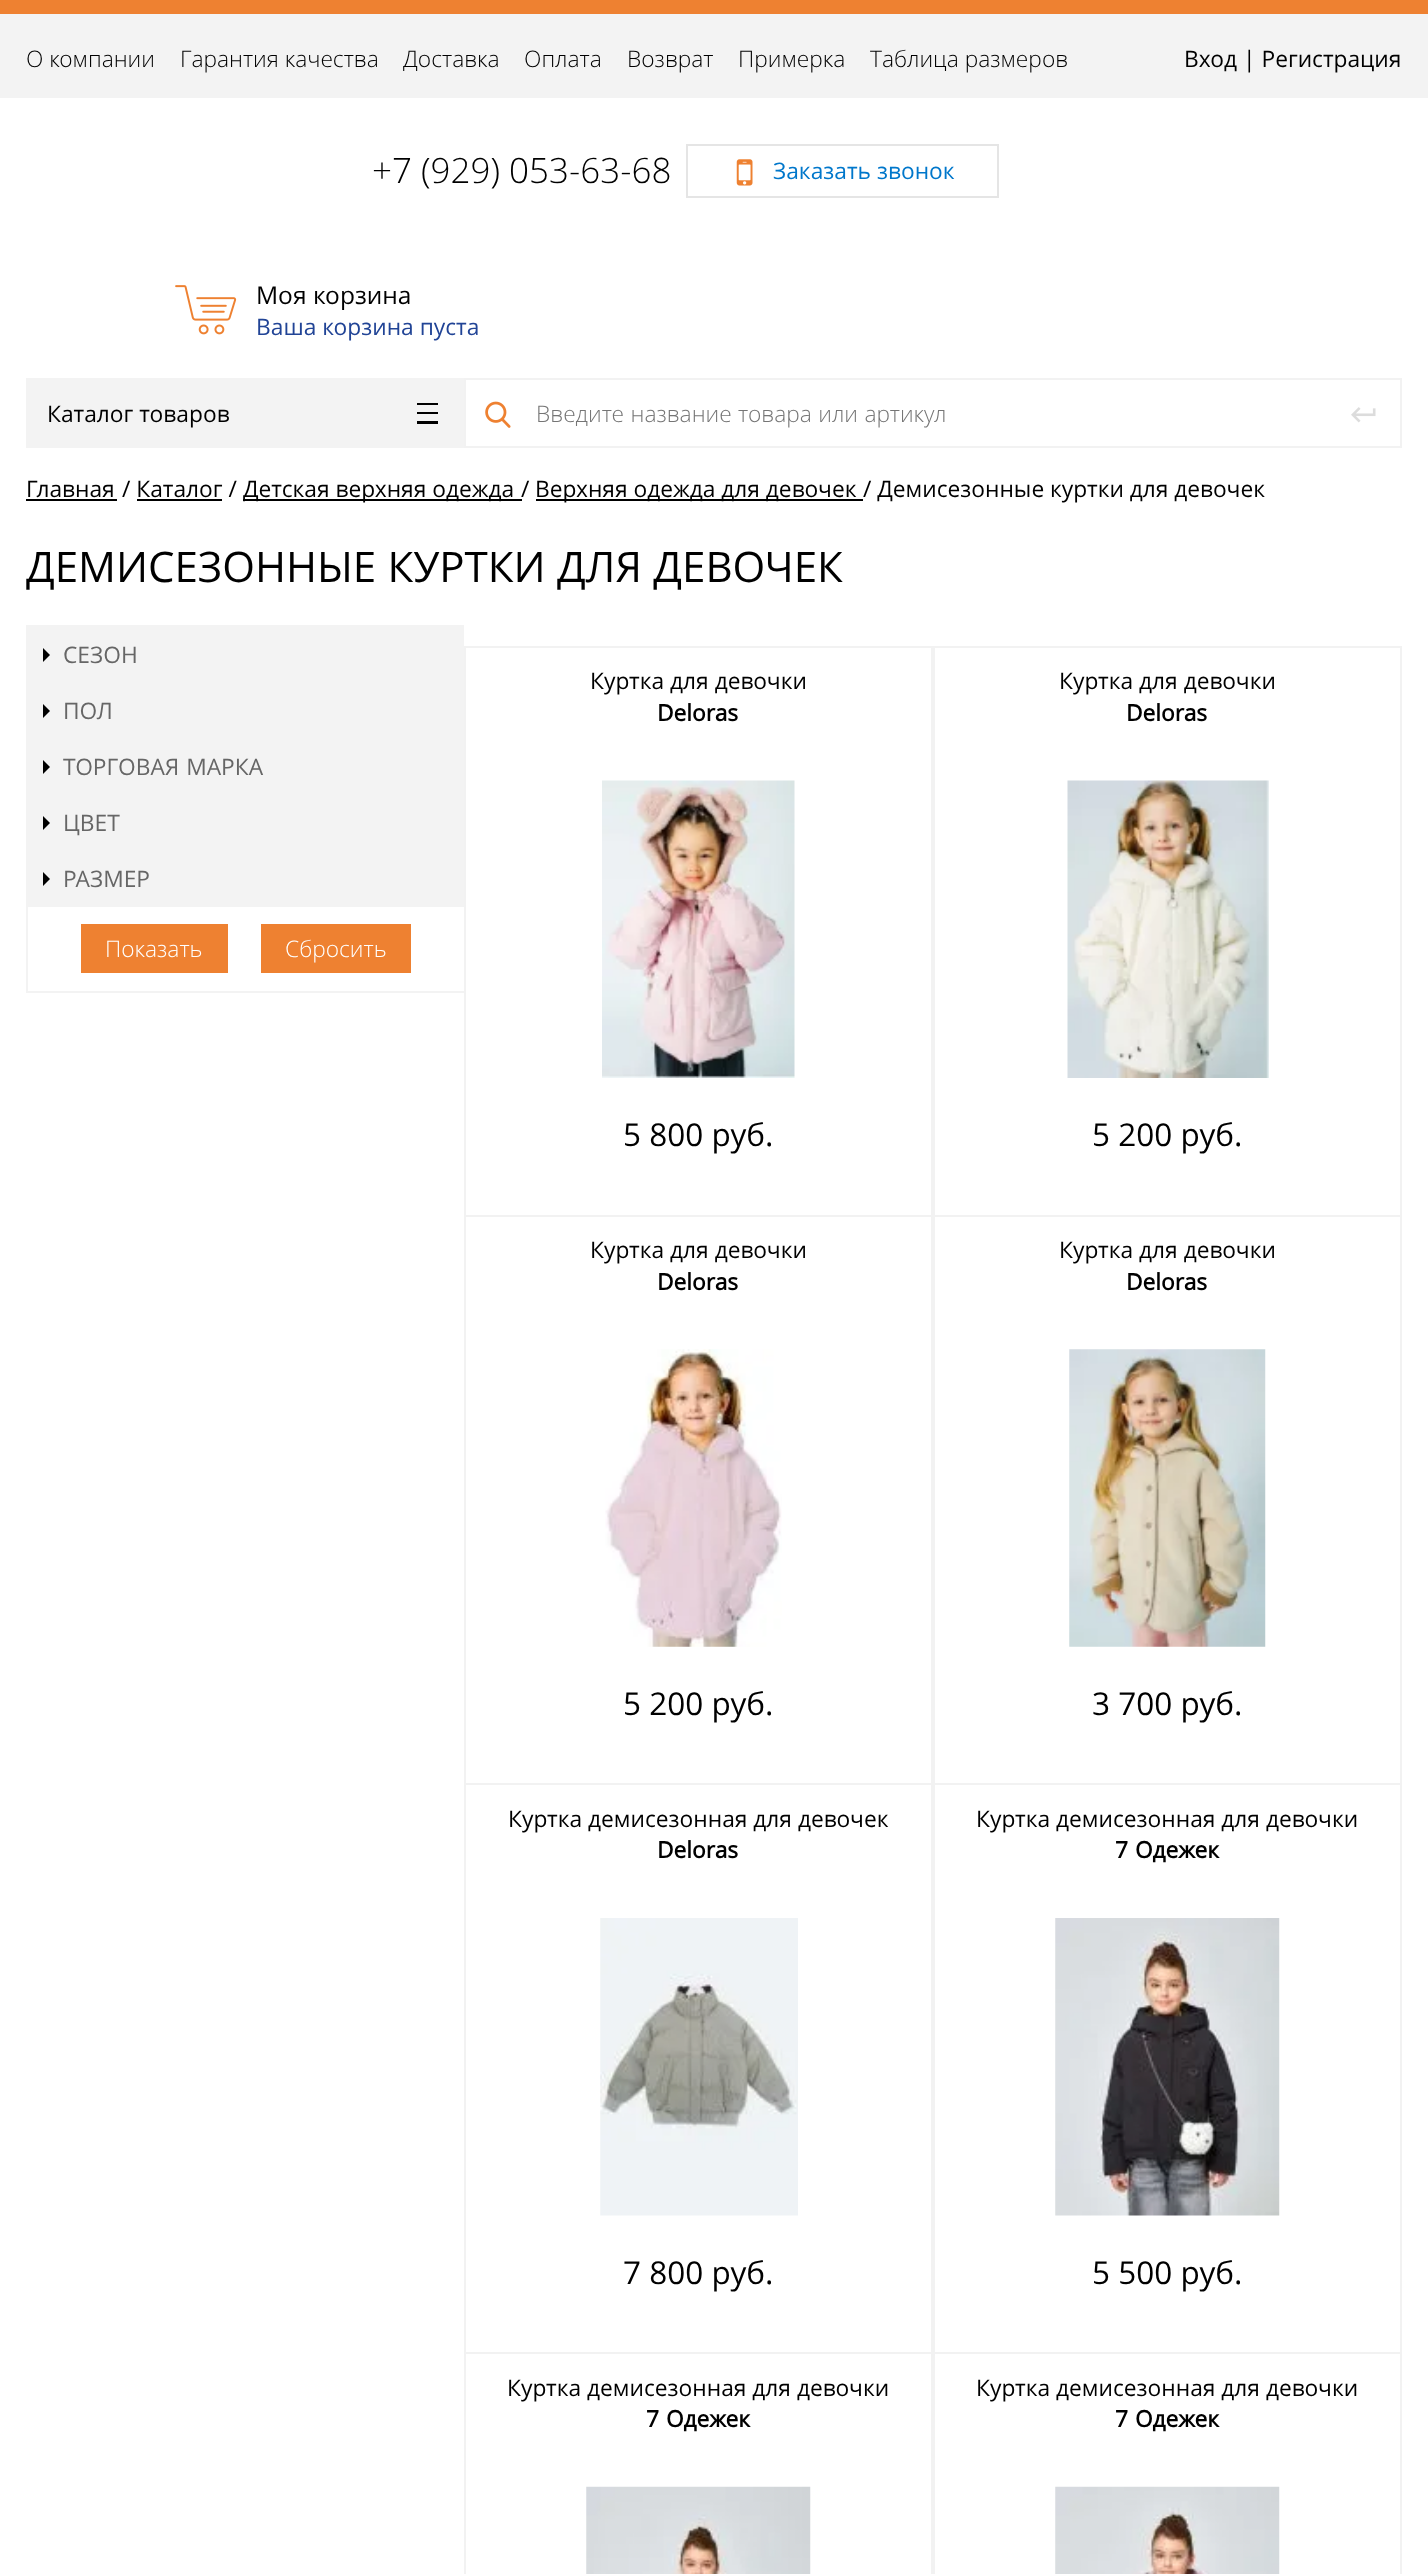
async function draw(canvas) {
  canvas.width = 1428;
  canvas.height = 2574;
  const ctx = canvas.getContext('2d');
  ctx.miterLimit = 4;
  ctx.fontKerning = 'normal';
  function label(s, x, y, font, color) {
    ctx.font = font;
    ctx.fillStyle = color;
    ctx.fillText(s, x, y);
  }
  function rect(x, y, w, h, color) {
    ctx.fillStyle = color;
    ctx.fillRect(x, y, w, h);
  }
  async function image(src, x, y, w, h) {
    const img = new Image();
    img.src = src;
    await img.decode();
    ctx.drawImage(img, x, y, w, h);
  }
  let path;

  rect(0, 0, 1428, 2574, '#fff');
  rect(0, 0, 1428, 14, '#ee8131');
  rect(0, 14, 1428, 84, '#f3f3f3');
  label('О компании', 26, 67, '300 22.75px Open Sans', '#000');
  label('Гарантия качества', 180, 67, '300 22.75px Open Sans', '#000');
  label('Доставка', 403, 67, '300 22.75px Open Sans', '#000');
  label('Оплата', 524, 67, '300 22.75px Open Sans', '#000');
  label('Возврат', 627, 67, '300 22.75px Open Sans', '#000');
  label('Примерка', 738, 67, '300 22.75px Open Sans', '#000');
  label('Таблица размеров', 870, 67, '300 22.75px Open Sans', '#000');
  label('Вход', 1184, 67, '22.75px Open Sans', '#000');
  label('| Регистрация', 1243, 67, '22.75px Open Sans', '#000');
  label('+7 (929) 053-63-68', 372, 183, '300 35px Open Sans', '#000');
  ctx.strokeStyle = '#e5e5e5';
  ctx.lineWidth = 2;
  ctx.strokeRect(687, 145, 311, 52);
  await image('assets/img1.png', 736, 159, 17, 27);
  label('Заказать звонок', 773, 179, '22.75px Open Sans', '#0077cb');
  await image('assets/img2.png', 175, 285, 62, 50);
  label('Моя корзина', 256, 304, '24.5px Open Sans', '#000');
  label('Ваша корзина пуста', 256, 335, '22.75px Open Sans', '#214496');
  rect(26, 378, 438, 70, '#f3f3f3');
  label('Каталог товаров', 47, 422, '22.75px Open Sans', '#000');
  rect(417, 403, 21, 2, '#000');
  rect(417, 412, 21, 2, '#000');
  rect(417, 421, 21, 3, '#000');
  ctx.strokeStyle = '#f2f2f2';
  ctx.strokeRect(465, 379, 936, 68);
  await image('assets/img3.png', 485, 401, 26, 27);
  ctx.wordSpacing = '0.5px';
  label('Введите название товара или артикул', 536, 422, '300 22.75px Open Sans', '#757575');
  await image('assets/img4.png', 1351, 407, 25, 16);
  ctx.wordSpacing = '0px';
  label('Главная', 26, 497, '22.75px Open Sans', '#000');
  rect(26, 499, 91, 2, '#000');
  label('/ Каталог /', 122, 497, '22.75px Open Sans', '#000');
  rect(243, 499, 279, 2, '#000');
  label('Детская верхняя одежда', 243, 497, '22.75px Open Sans', '#000');
  label('/', 521, 497, '22.75px Open Sans', '#000');
  rect(536, 499, 327, 2, '#000');
  label('Верхняя одежда для девочек', 535, 497, '22.75px Open Sans', '#000');
  label('/ Демисезонные куртки для девочек', 863, 497, '22.75px Open Sans', '#000');
  rect(137, 499, 85, 2, '#000');
  ctx.wordSpacing = '0.5px';
  label('ДЕМИСЕЗОННЫЕ КУРТКИ ДЛЯ ДЕВОЧЕК', 26, 582, '42px Open Sans', '#000');
  rect(26, 625, 438, 2, '#f3f3f3');
  rect(26, 991, 438, 2, '#f3f3f3');
  rect(26, 625, 2, 367, '#f3f3f3');
  rect(28, 627, 436, 280, '#f3f3f3');
  ctx.fillStyle = '#000';
  path = new Path2D('M43 662L50 655L43 648Z');
  ctx.fill(path, 'evenodd');
  ctx.wordSpacing = '0px';
  label('СЕЗОН', 63, 663, '22.75px Open Sans', '#666');
  ctx.fillStyle = '#000';
  path = new Path2D('M43 718L50 711L43 704Z');
  ctx.fill(path, 'evenodd');
  label('ПОЛ', 63, 719, '22.75px Open Sans', '#666');
  ctx.fillStyle = '#000';
  path = new Path2D('M43 774L50 767L43 760Z');
  ctx.fill(path, 'evenodd');
  ctx.wordSpacing = '1px';
  label('ТОРГОВАЯ МАРКА', 63, 775, '22.75px Open Sans', '#666');
  ctx.fillStyle = '#000';
  path = new Path2D('M43 830L50 823L43 816Z');
  ctx.fill(path, 'evenodd');
  ctx.wordSpacing = '0px';
  label('ЦВЕТ', 63, 831, '22.75px Open Sans', '#666');
  ctx.fillStyle = '#000';
  path = new Path2D('M43 886L50 879L43 872Z');
  ctx.fill(path, 'evenodd');
  label('РАЗМЕР', 63, 887, '22.75px Open Sans', '#666');
  rect(81, 924, 147, 49, '#ee8131');
  label('Показать', 105, 957, '300 22.75px Open Sans', '#fff');
  rect(261, 924, 150, 49, '#ee8131');
  label('Сбросить', 285, 957, '300 22.75px Open Sans', '#fff');
  ctx.strokeRect(465, 647, 467, 570);
  label('Куртка для девочки', 590, 689, '22.75px Open Sans', '#000');
  label('Deloras', 657, 721, 'bold 22.75px Open Sans', '#000');
  await image('assets/img5.png', 602, 780, 193, 298);
  label('5 800 руб.', 623, 1146, '31.5px Open Sans', '#000');
  ctx.strokeRect(934, 647, 467, 570);
  label('Куртка для девочки', 1059, 689, '22.75px Open Sans', '#000');
  label('Deloras', 1126, 721, 'bold 22.75px Open Sans', '#000');
  await image('assets/img6.png', 1067, 780, 202, 298);
  label('5 200 руб.', 1092, 1146, '31.5px Open Sans', '#000');
  rect(466, 1217, 465, 1, '#fff');
  ctx.strokeRect(465, 1216, 467, 570);
  label('Куртка для девочки', 590, 1258, '22.75px Open Sans', '#000');
  label('Deloras', 657, 1290, 'bold 22.75px Open Sans', '#000');
  await image('assets/img7.png', 605, 1349, 177, 298);
  label('5 200 руб.', 623, 1715, '31.5px Open Sans', '#000');
  rect(935, 1217, 465, 1, '#fff');
  ctx.strokeRect(934, 1216, 467, 570);
  label('Куртка для девочки', 1059, 1258, '22.75px Open Sans', '#000');
  label('Deloras', 1126, 1290, 'bold 22.75px Open Sans', '#000');
  await image('assets/img8.png', 1069, 1349, 197, 298);
  label('3 700 руб.', 1092, 1715, '31.5px Open Sans', '#000');
  rect(466, 1785, 465, 2, '#fff');
  ctx.strokeRect(465, 1784, 467, 571);
  label('Куртка демисезонная для девочек', 508, 1827, '22.75px Open Sans', '#000');
  label('Deloras', 657, 1858, 'bold 22.75px Open Sans', '#000');
  await image('assets/img9.png', 600, 1918, 198, 298);
  label('7 800 руб.', 623, 2284, '31.5px Open Sans', '#000');
  rect(935, 1785, 465, 2, '#fff');
  ctx.strokeRect(934, 1784, 467, 571);
  label('Куртка демисезонная для девочки', 976, 1827, '22.75px Open Sans', '#000');
  ctx.wordSpacing = '1px';
  label('7 Одежек', 1115, 1858, 'bold 22.75px Open Sans', '#000');
  await image('assets/img10.png', 1055, 1918, 225, 298);
  ctx.wordSpacing = '0px';
  label('5 500 руб.', 1092, 2284, '31.5px Open Sans', '#000');
  rect(466, 2354, 465, 2, '#fff');
  ctx.strokeRect(465, 2353, 467, 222);
  label('Куртка демисезонная для девочки', 507, 2396, '22.75px Open Sans', '#000');
  ctx.wordSpacing = '1px';
  label('7 Одежек', 646, 2427, 'bold 22.75px Open Sans', '#000');
  await image('assets/img11.png', 586, 2486, 225, 88);
  rect(935, 2354, 465, 2, '#fff');
  ctx.strokeRect(934, 2353, 467, 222);
  ctx.wordSpacing = '0px';
  label('Куртка демисезонная для девочки', 976, 2396, '22.75px Open Sans', '#000');
  ctx.wordSpacing = '1px';
  label('7 Одежек', 1115, 2427, 'bold 22.75px Open Sans', '#000');
  await image('assets/img12.png', 1055, 2486, 225, 88);
}

draw(document.querySelector('canvas'));
